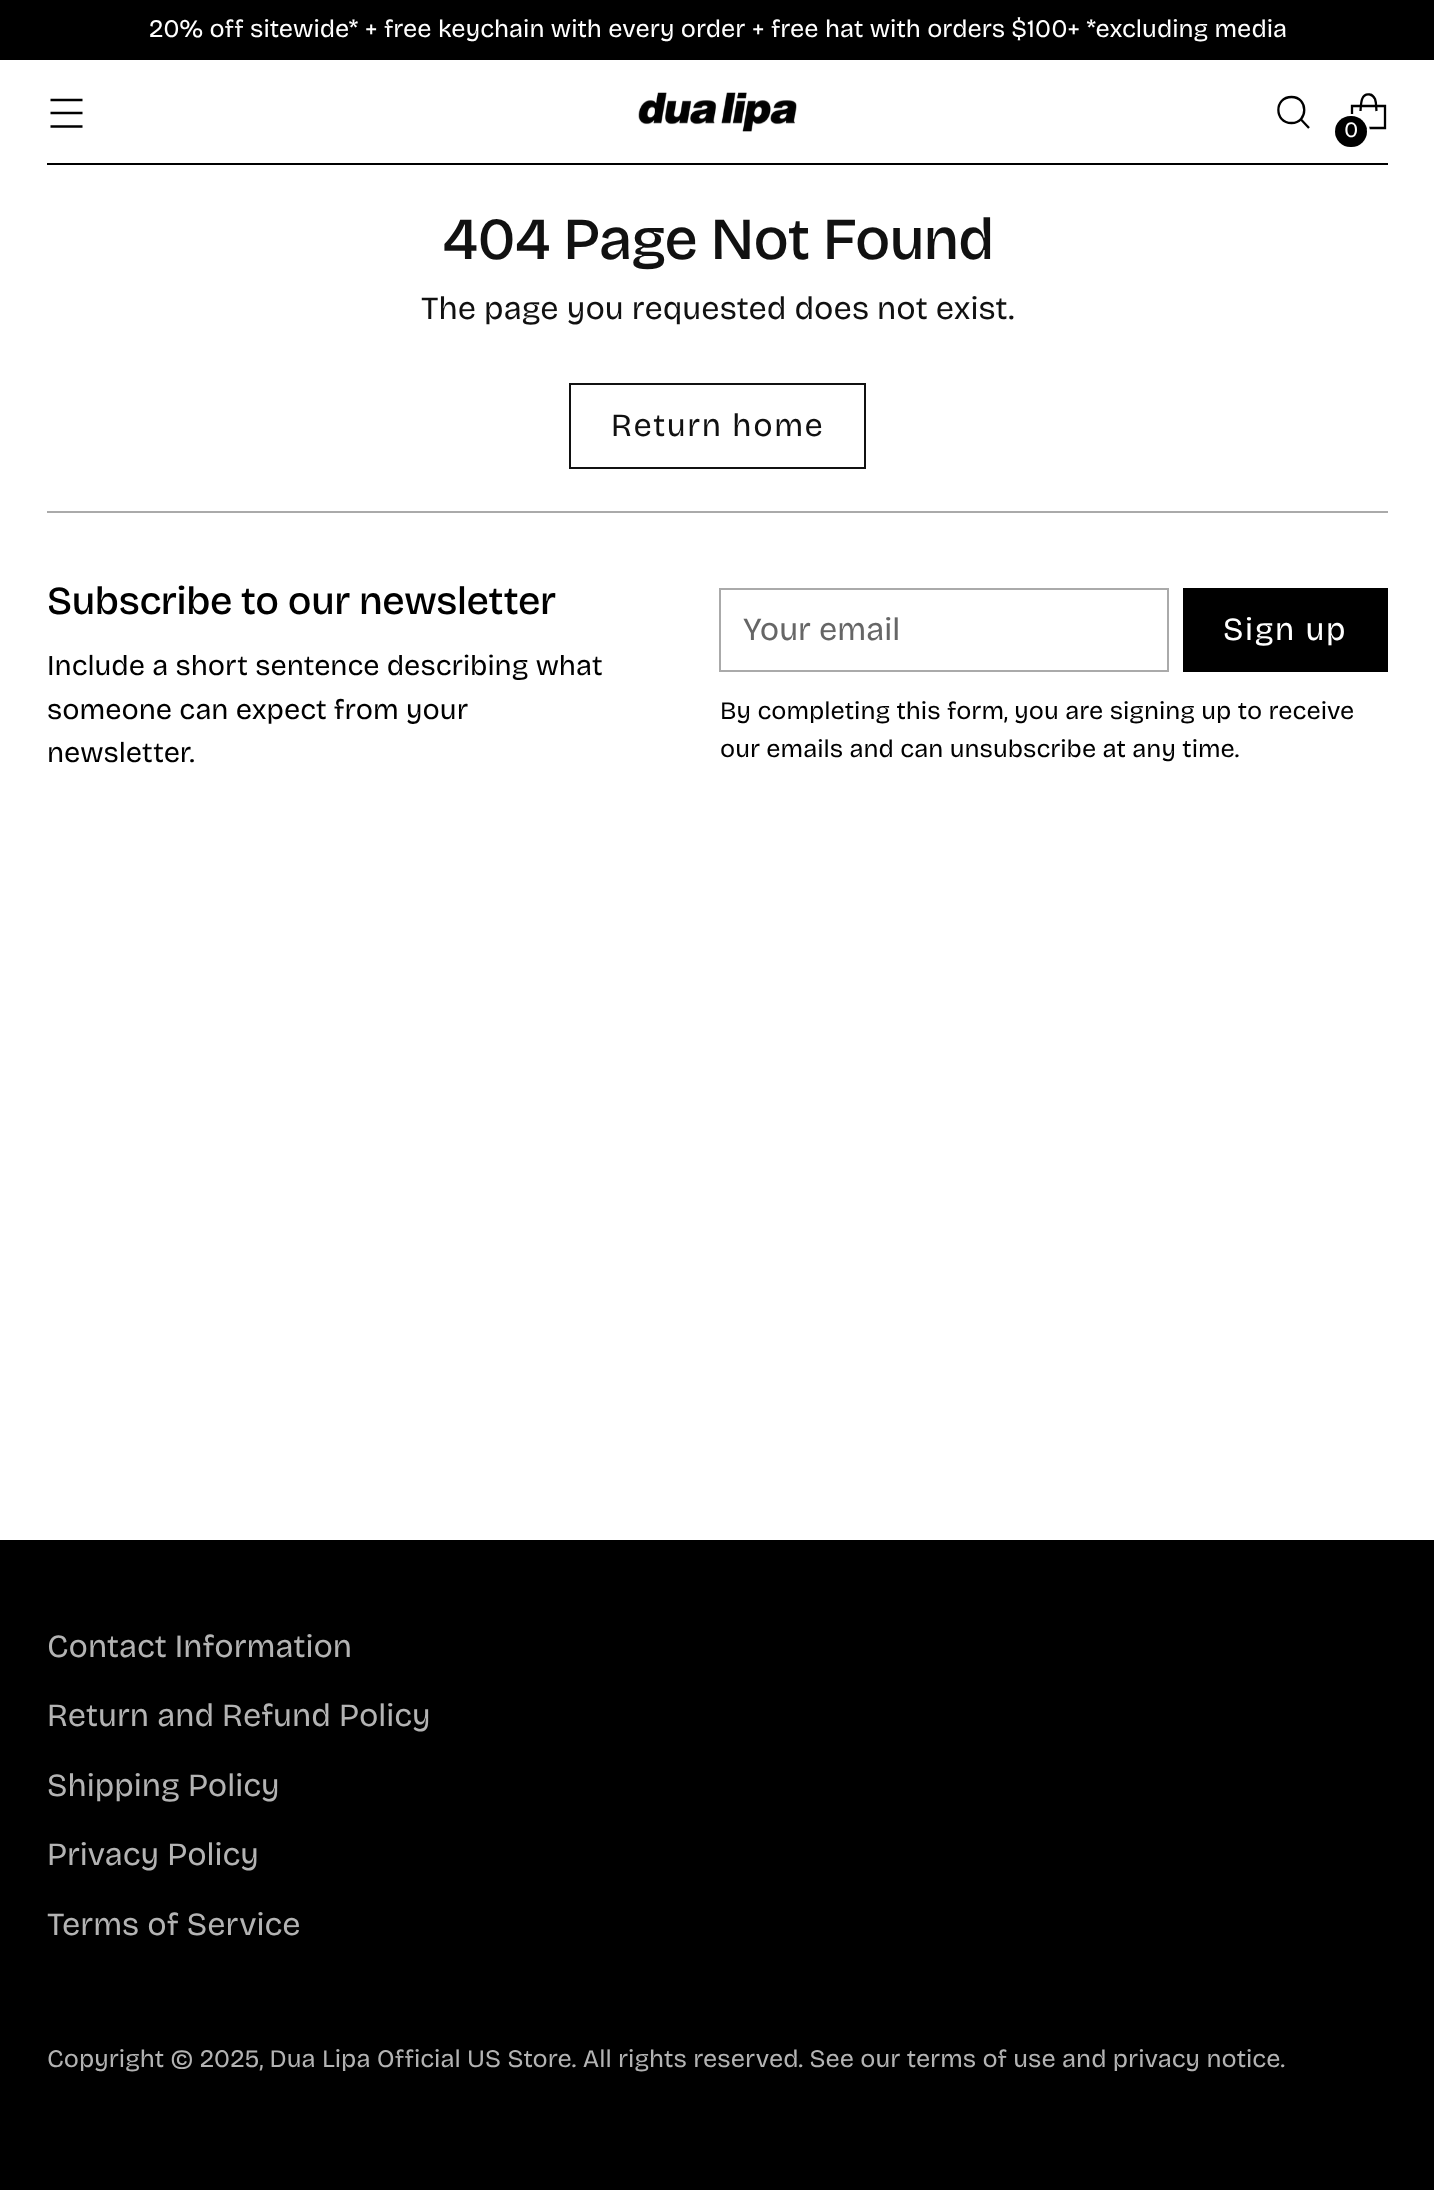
async function draw(canvas) {
  canvas.width = 1434;
  canvas.height = 2190;
  const ctx = canvas.getContext('2d');
  ctx.miterLimit = 4;
  ctx.fontKerning = 'normal';
  function label(s, x, y, font, color) {
    ctx.font = font;
    ctx.fillStyle = color;
    ctx.fillText(s, x, y);
  }
  function rect(x, y, w, h, color) {
    ctx.fillStyle = color;
    ctx.fillRect(x, y, w, h);
  }
  function roundedRect(x, y, w, h, r, color) {
    ctx.fillStyle = color;
    ctx.beginPath();
    ctx.roundRect(x, y, w, h, r);
    ctx.fill();
  }
  async function image(src, x, y, w, h) {
    const img = new Image();
    img.src = src;
    await img.decode();
    ctx.drawImage(img, x, y, w, h);
  }
  let path;

  rect(0, 0, 1434, 2190, '#fff');
  rect(0, 0, 1434, 60, '#000');
  label('20% off sitewide* + free keychain with every order + free hat with orders $100+ *excluding media', 149, 37, '25.2px "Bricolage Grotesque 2"', '#fff');
  rect(47, 163, 1341, 2, '#000');
  path = new Path2D('M50.5 113H82.5M50.5 100H82.5M50.5 126.5H82.5');
  ctx.strokeStyle = '#000';
  ctx.lineWidth = 2.3;
  ctx.stroke(path);
  await image('assets/img1.png', 638, 92, 159, 40);
  path = new Path2D('M1291.5 123C1308.5 123 1308.5 97 1291.5 97C1274 97 1274 123 1291.5 123Z');
  ctx.lineCap = 'round';
  ctx.stroke(path);
  path = new Path2D('M1301 119.5L1309 128');
  ctx.lineCap = 'butt';
  ctx.stroke(path);
  path = new Path2D('M1376.5 111C1376 107 1376.5 103 1375 99C1374 97 1372.5 95 1370 94.5C1360.5 92.5 1361 105 1360.5 111');
  ctx.lineJoin = 'bevel';
  ctx.stroke(path);
  path = new Path2D('M1385 128V106H1352V128Z');
  ctx.lineJoin = 'miter';
  ctx.stroke(path);
  ctx.beginPath();
  ctx.roundRect(1335.5, 115.5, 33, 34, 16.5);
  ctx.strokeStyle = '#fff';
  ctx.lineWidth = 3;
  ctx.stroke();
  roundedRect(1335, 116, 32, 31, 15.5, '#000');
  label('0', 1344, 137, '22px "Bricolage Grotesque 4"', '#fff');
  ctx.letterSpacing = '-0.6px';
  label('404 Page Not Found', 443, 259, '500 59.5px Bricolage Grotesque', '#111');
  ctx.letterSpacing = '0px';
  label('The page you requested does not exist.', 421, 319, '32.4px Bricolage Grotesque', '#111');
  ctx.strokeStyle = '#111';
  ctx.lineWidth = 2;
  ctx.strokeRect(570, 384, 295, 84);
  ctx.letterSpacing = '1.6px';
  label('Return home', 611, 436, '32.4px Bricolage Grotesque', '#111');
  rect(47, 511, 1341, 2, '#aaa');
  ctx.letterSpacing = '-0.4px';
  label('Subscribe to our newsletter', 47, 614, '500 39.6px "Bricolage Grotesque 2"', '#000');
  ctx.letterSpacing = '0px';
  label('Include a short sentence describing what', 47, 675, '28.75px "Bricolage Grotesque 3"', '#000');
  label('someone can expect from your', 47, 719, '28.75px "Bricolage Grotesque 3"', '#000');
  label('newsletter.', 47, 762, '28.75px "Bricolage Grotesque 3"', '#000');
  ctx.strokeStyle = '#aaa';
  ctx.strokeRect(720, 589, 448, 82);
  label('Your email', 743, 640, '32.4px Bricolage Grotesque', '#666');
  ctx.save();
  ctx.beginPath();
  ctx.rect(1183, 588, 205, 84);
  ctx.clip();
  ctx.fillStyle = '#000';
  path = new Path2D('M1128 588H1394L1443 672H1176Z');
  ctx.fill(path);
  ctx.restore();
  ctx.letterSpacing = '1.6px';
  label('Sign up', 1223, 640, '32.4px Bricolage Grotesque', '#fff');
  ctx.letterSpacing = '0px';
  label('By completing this form, you are signing up to receive', 720, 719, '25.2px "Bricolage Grotesque 2"', '#000');
  label('our emails and can unsubscribe at any time.', 720, 757, '25.2px "Bricolage Grotesque 2"', '#000');
  rect(0, 1540, 1434, 650, '#000');
  label('Contact Information', 47, 1657, '32.4px Bricolage Grotesque', '#b3b3b3');
  label('Return and Refund Policy', 47, 1726, '32.4px Bricolage Grotesque', '#b3b3b3');
  label('Shipping Policy', 47, 1796, '32.4px Bricolage Grotesque', '#b3b3b3');
  label('Privacy Policy', 47, 1865, '32.4px Bricolage Grotesque', '#b3b3b3');
  label('Terms of Service', 47, 1935, '32.4px Bricolage Grotesque', '#b3b3b3');
  label('Copyright © 2025, Dua Lipa Official US Store. All rights reserved. See our terms of use and privacy notice.', 47, 2067, '25.2px "Bricolage Grotesque 2"', '#b3b3b3');
}

draw(document.querySelector('canvas'));
